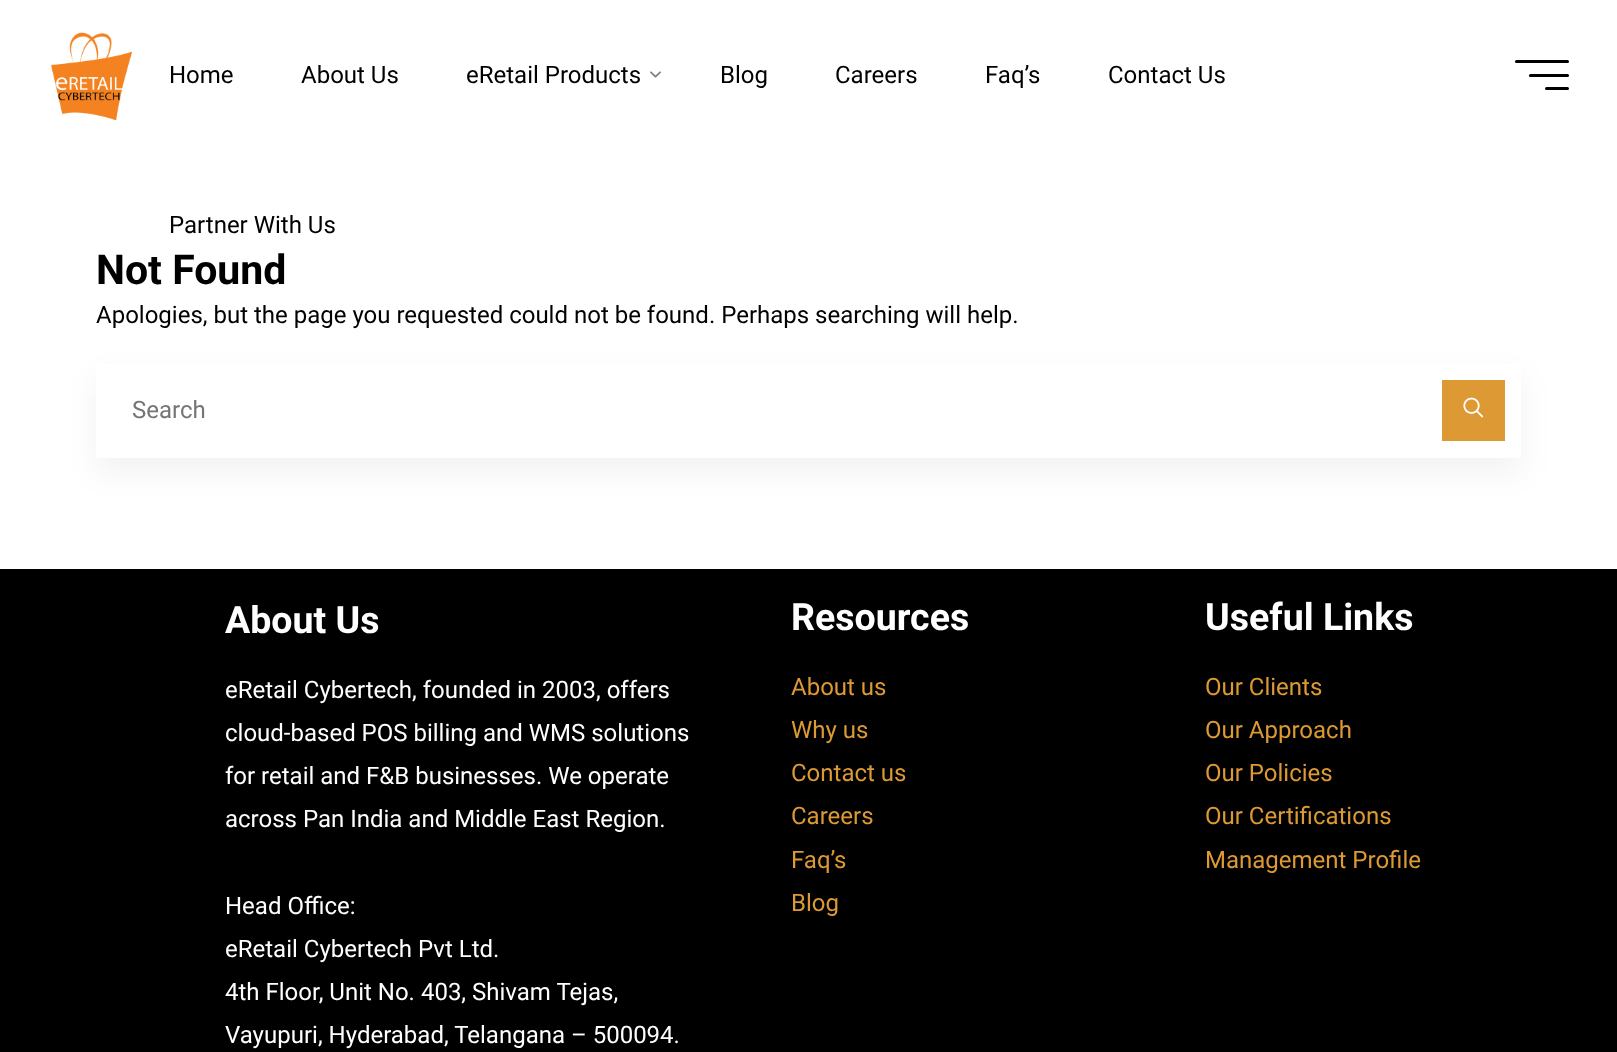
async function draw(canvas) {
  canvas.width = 1617;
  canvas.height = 1052;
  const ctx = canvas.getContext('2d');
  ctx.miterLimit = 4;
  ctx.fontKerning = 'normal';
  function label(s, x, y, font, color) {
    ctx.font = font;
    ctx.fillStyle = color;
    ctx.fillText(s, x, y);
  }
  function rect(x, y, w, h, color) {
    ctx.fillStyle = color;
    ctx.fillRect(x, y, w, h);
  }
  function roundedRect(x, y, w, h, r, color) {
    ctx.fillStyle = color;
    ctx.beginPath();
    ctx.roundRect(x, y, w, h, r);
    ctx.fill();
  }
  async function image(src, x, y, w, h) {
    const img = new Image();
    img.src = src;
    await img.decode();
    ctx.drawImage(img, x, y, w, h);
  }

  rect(0, 0, 1617, 1052, '#fff');
  await image('assets/img1.png', 51, 32, 82, 89);
  label('Home', 169, 83, '24px Roboto', '#000');
  label('About Us', 301, 83, '24px Roboto', '#000');
  label('eRetail Products', 466, 83, '24px Roboto', '#000');
  await image('assets/img2.png', 650, 71, 11, 7);
  label('Blog', 720, 83, '24px Roboto', '#000');
  label('Careers', 835, 83, '24px Roboto', '#000');
  label('Faq’s', 985, 83, '24px Roboto', '#000');
  label('Contact Us', 1108, 83, '24px Roboto', '#000');
  label('Partner With Us', 169, 233, '24px Roboto', '#000');
  roundedRect(1515, 60, 54, 3, 1.5, '#000');
  roundedRect(1529, 74, 40, 3, 1.5, '#000');
  roundedRect(1545, 87, 24, 3, 1.5, '#000');
  label('Not Found', 96, 284, 'bold 41px Roboto', '#000');
  label('Apologies, but the page you requested could not be found. Perhaps searching will help.', 96, 323, '24px Roboto', '#000');
  ctx.fillStyle = '#0000000d';
  ctx.filter = 'blur(15px)';
  ctx.beginPath();
  ctx.rect(96, 377, 1425, 96);
  ctx.fill();
  ctx.filter = 'none';
  rect(96, 364, 1425, 94, '#fff');
  label('Search', 132, 418, '24px Roboto', '#757575');
  rect(1442, 380, 63, 61, '#d93');
  await image('assets/img3.png', 1463, 397, 21, 21);
  rect(0, 569, 1617, 483, '#000');
  label('About Us', 225, 633, 'bold 37.5px Roboto', '#fff');
  label('eRetail Cybertech, founded in 2003, offers', 225, 698, '24px Roboto', '#fff');
  label('cloud-based POS billing and WMS solutions', 225, 741, '24px Roboto', '#fff');
  label('for retail and F&B businesses. We operate', 225, 784, '24px Roboto', '#fff');
  label('across Pan India and Middle East Region.', 225, 827, '24px Roboto', '#fff');
  label('Head Office:', 225, 914, '24px Roboto', '#fff');
  label('eRetail Cybertech Pvt Ltd.', 225, 957, '24px Roboto', '#fff');
  label('4th Floor, Unit No. 403, Shivam Tejas,', 225, 1000, '24px Roboto', '#fff');
  label('Vayupuri, Hyderabad, Telangana – 500094.', 225, 1043, '24px Roboto', '#fff');
  label('Resources', 791, 630, 'bold 37.5px Roboto', '#fff');
  label('About us', 791, 695, '24px Roboto', '#d93');
  label('Why us', 791, 738, '24px Roboto', '#d93');
  label('Contact us', 791, 781, '24px Roboto', '#d93');
  label('Careers', 791, 824, '24px Roboto', '#d93');
  label('Faq’s', 791, 868, '24px Roboto', '#d93');
  label('Blog', 791, 911, '24px Roboto', '#d93');
  label('Useful Links', 1205, 630, 'bold 37.5px Roboto', '#fff');
  label('Our Clients', 1205, 695, '24px Roboto', '#d93');
  label('Our Approach', 1205, 738, '24px Roboto', '#d93');
  label('Our Policies', 1205, 781, '24px Roboto', '#d93');
  label('Our Certifications', 1205, 824, '24px Roboto', '#d93');
  label('Management Profile', 1205, 868, '24px Roboto', '#d93');
}

draw(document.querySelector('canvas'));
